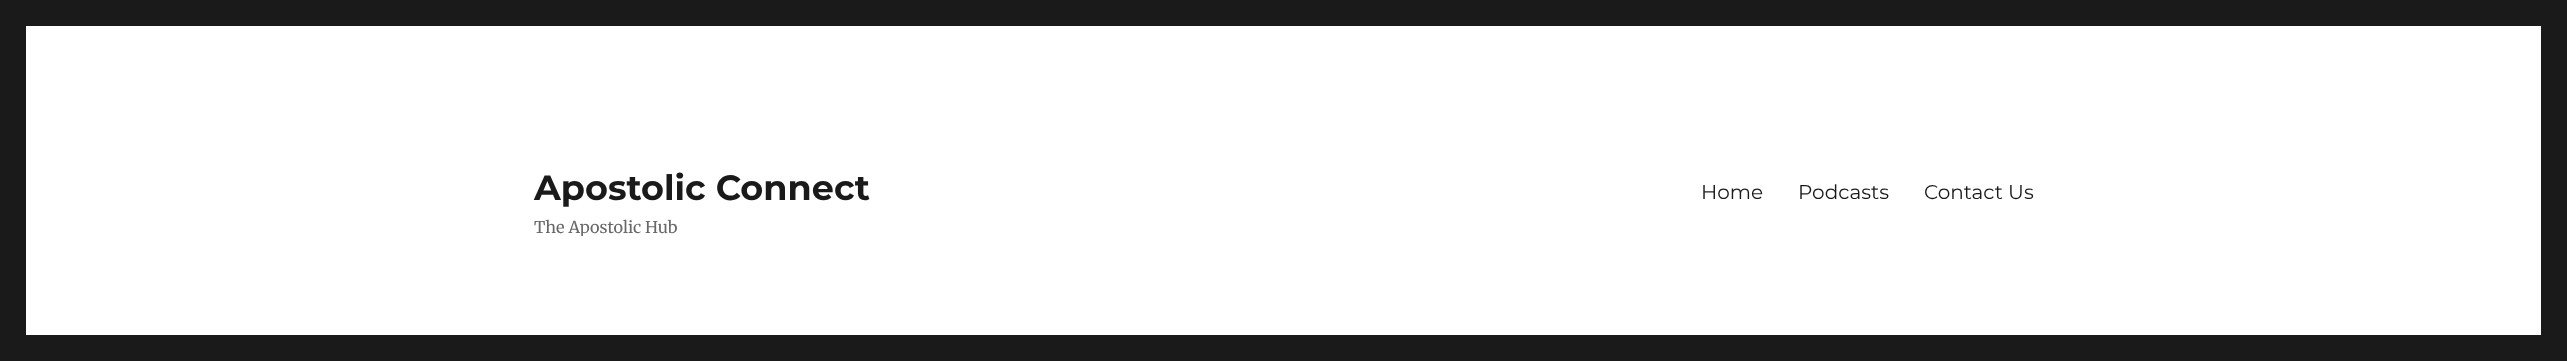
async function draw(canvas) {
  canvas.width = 2567;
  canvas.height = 361;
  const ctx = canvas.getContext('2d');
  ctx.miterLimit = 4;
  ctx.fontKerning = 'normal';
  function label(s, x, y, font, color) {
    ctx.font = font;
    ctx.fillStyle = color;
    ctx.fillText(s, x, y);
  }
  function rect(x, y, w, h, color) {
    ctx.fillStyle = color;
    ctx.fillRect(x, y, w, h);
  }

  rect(0, 0, 2567, 361, '#1a1a1a');
  rect(26, 26, 2515, 309, '#fff');
  label('Apostolic Connect', 534, 200, 'bold 35px Montserrat', '#1a1a1a');
  ctx.save();
  ctx.beginPath();
  ctx.rect(534, 166, 336, 70);
  ctx.clip();
  label('The Apostolic Hub', 534, 233, '16.25px Merriweather', '#686868');
  ctx.restore();
  label('Home', 1701, 199, '20px Montserrat', '#1a1a1a');
  label('Podcasts', 1798, 199, '20px Montserrat', '#1a1a1a');
  label('Contact Us', 1924, 199, '20px Montserrat', '#1a1a1a');
}

draw(document.querySelector('canvas'));
